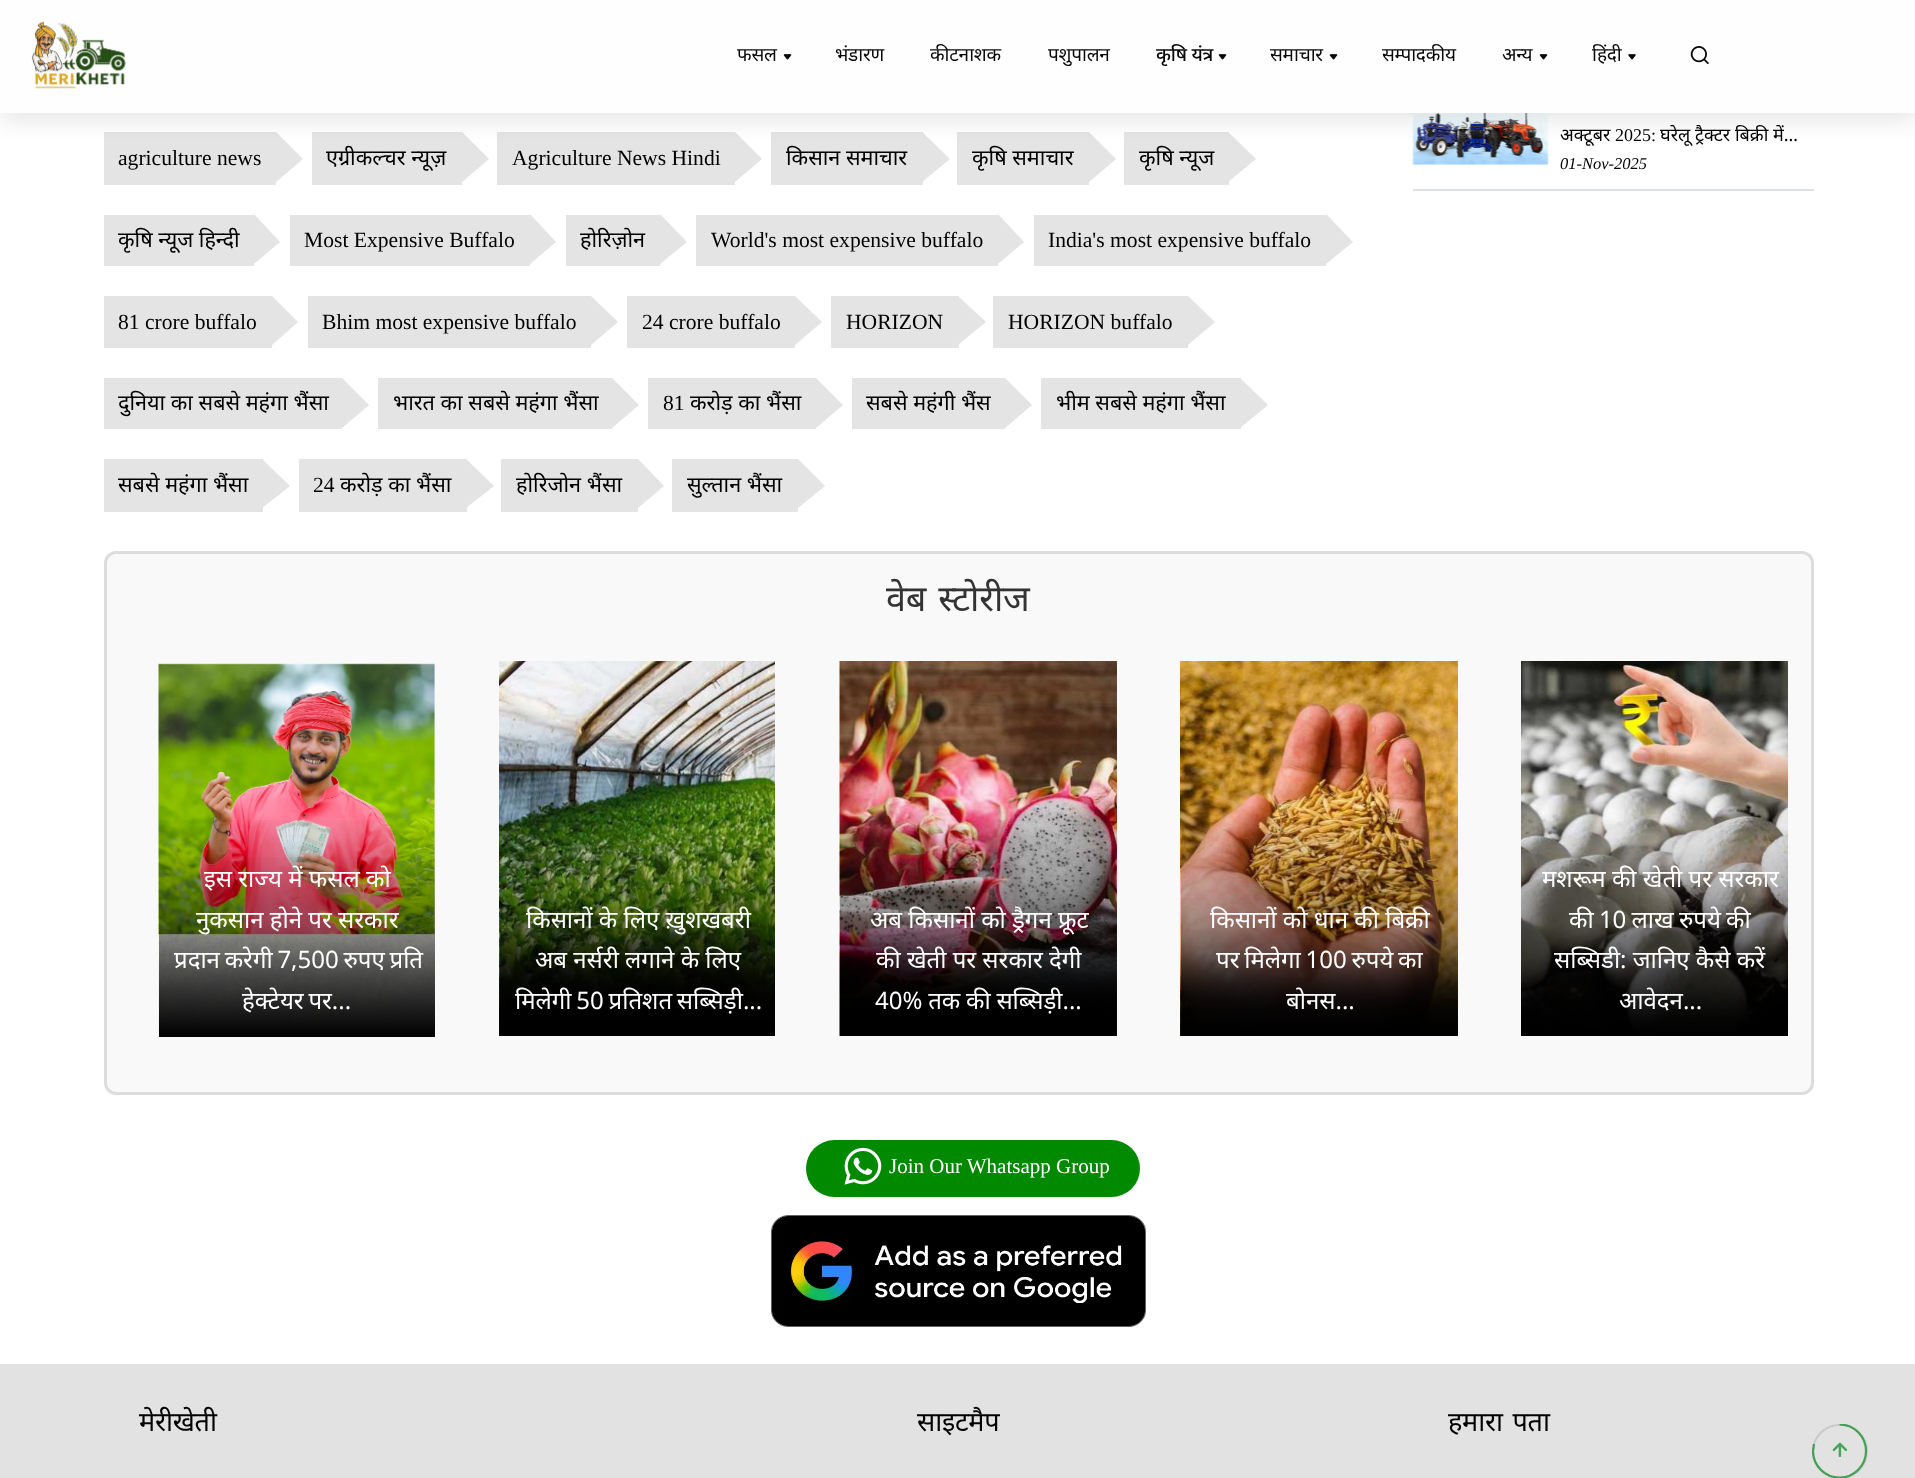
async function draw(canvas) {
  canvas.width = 1915;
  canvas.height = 1478;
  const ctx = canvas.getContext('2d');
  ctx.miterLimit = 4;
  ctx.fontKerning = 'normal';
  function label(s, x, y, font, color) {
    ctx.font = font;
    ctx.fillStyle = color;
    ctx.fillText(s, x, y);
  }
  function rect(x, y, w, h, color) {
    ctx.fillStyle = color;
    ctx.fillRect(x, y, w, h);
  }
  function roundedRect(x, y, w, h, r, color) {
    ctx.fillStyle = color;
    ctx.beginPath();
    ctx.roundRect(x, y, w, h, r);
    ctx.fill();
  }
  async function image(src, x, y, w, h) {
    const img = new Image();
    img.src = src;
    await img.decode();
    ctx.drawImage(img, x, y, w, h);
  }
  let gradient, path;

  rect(0, 0, 1915, 1478, '#fff');
  rect(104, 132, 172, 53, '#e4e4e4');
  path = new Path2D('M276 182V132L303 159Z');
  ctx.fill(path);
  rect(312, 132, 150, 53, '#e4e4e4');
  path = new Path2D('M462 182V132L489 159Z');
  ctx.fill(path);
  rect(497, 132, 238, 53, '#e4e4e4');
  path = new Path2D('M735 182V132L762 159Z');
  ctx.fill(path);
  rect(771, 132, 152, 53, '#e4e4e4');
  path = new Path2D('M922 182V132L950 159Z');
  ctx.fill(path);
  rect(957, 132, 132, 53, '#e4e4e4');
  path = new Path2D('M1089 182V132L1116 159Z');
  ctx.fill(path);
  rect(1124, 132, 105, 53, '#e4e4e4');
  path = new Path2D('M1228 182V132L1256 159Z');
  ctx.fill(path);
  await image('assets/img5.png', 1412, 113, 137, 52);
  ctx.fillStyle = '#0000001a';
  ctx.filter = 'blur(12px)';
  ctx.beginPath();
  ctx.rect(0, 8, 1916, 112);
  ctx.fill();
  ctx.filter = 'none';
  rect(0, 0, 1915, 113, '#fefefe');
  await image('assets/img1.png', 31, 21, 95, 68);
  ctx.letterSpacing = '-0.25px';
  label('फसल', 737, 61, '19px Noto Sans', '#090909');
  await image('assets/img2.png', 783, 54, 9, 6);
  label('भंडारण', 835, 61, '19px Noto Sans', '#090909');
  label('कीटनाशक', 930, 61, '19px Noto Sans', '#090909');
  label('पशुपालन', 1048, 61, '19px Noto Sans', '#090909');
  label('कृषि यंत्र', 1156, 61, '500 19px Noto Sans', '#090909');
  await image('assets/img2.png', 1218, 54, 9, 6);
  label('समाचार', 1270, 61, '19px Noto Sans', '#090909');
  await image('assets/img2.png', 1329, 54, 9, 6);
  label('सम्पादकीय', 1382, 61, '19px Noto Sans', '#090909');
  label('अन्य', 1502, 61, '19px Noto Sans', '#090909');
  await image('assets/img2.png', 1539, 54, 9, 6);
  label('हिंदी', 1592, 61, '19px Noto Sans', '#090909');
  await image('assets/img3.png', 1628, 54, 8, 6);
  await image('assets/img4.png', 1690, 46, 19, 18);
  ctx.letterSpacing = '0px';
  label('agriculture news', 118, 165, '21.6px Liberation Serif', '#000');
  label('एग्रीकल्चर न्यूज़', 326, 165, '21.6px Noto Sans', '#000');
  label('Agriculture News Hindi', 512, 165, '21.6px Liberation Serif', '#000');
  label('किसान समाचार', 786, 165, '21.6px Noto Sans', '#000');
  label('कृषि समाचार', 972, 165, '21.6px Noto Sans', '#000');
  label('कृषि न्यूज', 1139, 165, '21.6px Noto Sans', '#000');
  rect(104, 215, 150, 51, '#e4e4e4');
  label('कृषि न्यूज हिन्दी', 118, 247, '21.6px Noto Sans', '#000');
  ctx.fillStyle = '#e4e4e4';
  path = new Path2D('M254 264V214L280 242Z');
  ctx.fill(path);
  rect(290, 215, 240, 51, '#e4e4e4');
  label('Most Expensive Buffalo', 304, 247, '21.6px Liberation Serif', '#000');
  ctx.fillStyle = '#e4e4e4';
  path = new Path2D('M530 264V214L556 242Z');
  ctx.fill(path);
  rect(566, 215, 94, 51, '#e4e4e4');
  label('होरिज़ोन', 580, 247, '21.6px Noto Sans', '#000');
  ctx.fillStyle = '#e4e4e4';
  path = new Path2D('M660 264V214L687 242Z');
  ctx.fill(path);
  rect(696, 215, 302, 51, '#e4e4e4');
  label('World\'s most expensive buffalo', 711, 247, '21.6px Liberation Serif', '#000');
  ctx.fillStyle = '#e4e4e4';
  path = new Path2D('M998 264V214L1024 242Z');
  ctx.fill(path);
  rect(1034, 215, 292, 51, '#e4e4e4');
  label('India\'s most expensive buffalo', 1048, 247, '21.6px Liberation Serif', '#000');
  ctx.fillStyle = '#e4e4e4';
  path = new Path2D('M1326 264V214L1353 242Z');
  ctx.fill(path);
  rect(104, 296, 168, 52, '#e4e4e4');
  label('81 crore buffalo', 118, 329, '21.6px Liberation Serif', '#000');
  ctx.fillStyle = '#e4e4e4';
  path = new Path2D('M272 345V296L298 322Z');
  ctx.fill(path);
  rect(308, 296, 283, 52, '#e4e4e4');
  label('Bhim most expensive buffalo', 322, 329, '21.6px Liberation Serif', '#000');
  ctx.fillStyle = '#e4e4e4';
  path = new Path2D('M591 345V296L618 322Z');
  ctx.fill(path);
  rect(627, 296, 168, 52, '#e4e4e4');
  label('24 crore buffalo', 642, 329, '21.6px Liberation Serif', '#000');
  ctx.fillStyle = '#e4e4e4';
  path = new Path2D('M795 345V296L822 322Z');
  ctx.fill(path);
  rect(831, 296, 128, 52, '#e4e4e4');
  label('HORIZON', 846, 329, '21.6px Liberation Serif', '#000');
  ctx.fillStyle = '#e4e4e4';
  path = new Path2D('M958 345V296L986 322Z');
  ctx.fill(path);
  rect(993, 296, 195, 52, '#e4e4e4');
  label('HORIZON buffalo', 1008, 329, '21.6px Liberation Serif', '#000');
  ctx.fillStyle = '#e4e4e4';
  path = new Path2D('M1188 345V296L1215 322Z');
  ctx.fill(path);
  rect(104, 378, 238, 51, '#e4e4e4');
  label('दुनिया का सबसे महंगा भैंसा', 118, 410, '21.6px Noto Sans', '#000');
  ctx.fillStyle = '#e4e4e4';
  path = new Path2D('M342 428V378L369 405Z');
  ctx.fill(path);
  rect(378, 378, 234, 51, '#e4e4e4');
  label('भारत का सबसे महंगा भैंसा', 393, 410, '21.6px Noto Sans', '#000');
  ctx.fillStyle = '#e4e4e4';
  path = new Path2D('M612 428V378L639 405Z');
  ctx.fill(path);
  rect(648, 378, 168, 51, '#e4e4e4');
  label('81', 663, 410, '21.6px Liberation Serif', '#000');
  label('करोड़ का भैंसा', 690, 410, '21.6px Noto Sans', '#000');
  ctx.fillStyle = '#e4e4e4';
  path = new Path2D('M816 428V378L843 405Z');
  ctx.fill(path);
  rect(852, 378, 153, 51, '#e4e4e4');
  label('सबसे महंगी भैंस', 866, 410, '21.6px Noto Sans', '#000');
  ctx.fillStyle = '#e4e4e4';
  path = new Path2D('M1005 428V378L1032 405Z');
  ctx.fill(path);
  rect(1041, 378, 200, 51, '#e4e4e4');
  label('भीम सबसे महंगा भैंसा', 1056, 410, '21.6px Noto Sans', '#000');
  ctx.fillStyle = '#e4e4e4';
  path = new Path2D('M1240 428V378L1268 405Z');
  ctx.fill(path);
  rect(104, 459, 159, 53, '#e4e4e4');
  label('सबसे महंगा भैंसा', 118, 492, '21.6px Noto Sans', '#000');
  ctx.fillStyle = '#e4e4e4';
  path = new Path2D('M262 508V459L290 486Z');
  ctx.fill(path);
  rect(299, 459, 168, 53, '#e4e4e4');
  label('24', 313, 492, '21.6px Liberation Serif', '#000');
  label('करोड़ का भैंसा', 340, 492, '21.6px Noto Sans', '#000');
  ctx.fillStyle = '#e4e4e4';
  path = new Path2D('M466 508V459L494 486Z');
  ctx.fill(path);
  rect(501, 459, 137, 53, '#e4e4e4');
  label('होरिजोन भैंसा', 516, 492, '21.6px Noto Sans', '#000');
  ctx.fillStyle = '#e4e4e4';
  path = new Path2D('M638 508V459L664 486Z');
  ctx.fill(path);
  rect(672, 459, 126, 53, '#e4e4e4');
  label('सुल्तान भैंसा', 687, 492, '21.6px Noto Sans', '#000');
  ctx.fillStyle = '#e4e4e4';
  path = new Path2D('M798 508V459L825 486Z');
  ctx.fill(path);
  rect(1413, 189, 401, 2, '#dee2e6');
  label('अक्टूबर', 1560, 141, '18px Noto Sans', '#000');
  label('2025:', 1615, 141, '18px Liberation Serif', '#000');
  label('घरेलू ट्रैक्टर बिक्री में…', 1660, 141, '18px Noto Sans', '#000');
  label('01-Nov-2025', 1560, 169, 'italic 16.5px Liberation Serif', '#000');
  ctx.fillStyle = '#f9f9f9';
  ctx.beginPath();
  ctx.roundRect(105.5, 552.5, 1707, 541, 10.5);
  ctx.fill();
  ctx.strokeStyle = '#ddd';
  ctx.lineWidth = 3;
  ctx.stroke();
  ctx.letterSpacing = '-0.25px';
  ctx.wordSpacing = '3px';
  label('वेब स्टोरीज', 886, 611, '36px Noto Sans', '#333');
  await image('assets/img6.png', 158, 663, 277, 370);
  gradient = ctx.createLinearGradient(297, 1037, 297, 843);
  gradient.addColorStop(0, '#0000004d');
  gradient.addColorStop(1, '#00000000');
  ctx.fillStyle = gradient;
  ctx.fillRect(159, 857, 276, 179);
  gradient = ctx.createLinearGradient(297, 1037, 297, 812);
  gradient.addColorStop(0, '#000');
  gradient.addColorStop(0.5, '#0000004d');
  gradient.addColorStop(1, '#00000000');
  ctx.fillStyle = gradient;
  ctx.fillRect(159, 820, 276, 217);
  ctx.letterSpacing = '0px';
  ctx.wordSpacing = '0px';
  label('इस राज्य में फसल को', 204, 887, '24px Noto Sans', '#fff');
  label('नुकसान होने पर सरकार', 196, 928, '24px Noto Sans', '#fff');
  ctx.wordSpacing = '-1.5px';
  label('प्रदान करेगी 7,500 रुपए प्रति', 174, 968, '24px Noto Sans', '#fff');
  label('हेक्टेयर पर...', 242, 1009, '24px Noto Sans', '#fff');
  await image('assets/img7.png', 499, 661, 276, 375);
  ctx.wordSpacing = '0px';
  label('किसानों के लिए ख़ुशखबरी', 526, 928, '24px Noto Sans', '#fff');
  label('अब नर्सरी लगाने के लिए', 535, 968, '24px Noto Sans', '#fff');
  ctx.wordSpacing = '-1.5px';
  label('मिलेगी 50 प्रतिशत सब्सिड़ी...', 515, 1009, '24px Noto Sans', '#fff');
  await image('assets/img8.png', 839, 661, 278, 375);
  ctx.wordSpacing = '0px';
  label('अब किसानों को ड्रैगन फ्रूट', 870, 928, '24px Noto Sans', '#fff');
  label('की खेती पर सरकार देगी', 876, 968, '24px Noto Sans', '#fff');
  ctx.wordSpacing = '-0.5px';
  label('40% तक की सब्सिड़ी...', 875, 1009, '24px Noto Sans', '#fff');
  await image('assets/img9.png', 1180, 661, 278, 375);
  ctx.wordSpacing = '0px';
  label('किसानों को धान की बिक्री', 1210, 928, '24px Noto Sans', '#fff');
  ctx.wordSpacing = '-1.5px';
  label('पर मिलेगा 100 रुपये का', 1216, 968, '24px Noto Sans', '#fff');
  ctx.wordSpacing = '0px';
  label('बोनस...', 1286, 1009, '24px Noto Sans', '#fff');
  await image('assets/img10.png', 1521, 661, 267, 375);
  label('मशरूम की खेती पर सरकार', 1542, 887, '24px Noto Sans', '#fff');
  ctx.wordSpacing = '-1px';
  label('की 10 लाख रुपये की', 1569, 928, '24px Noto Sans', '#fff');
  ctx.wordSpacing = '0px';
  label('सब्सिडी: जानिए कैसे करें', 1554, 968, '24px Noto Sans', '#fff');
  label('आवेदन...', 1619, 1009, '24px Noto Sans', '#fff');
  roundedRect(806, 1140, 334, 57, 28.5, '#018900');
  await image('assets/img11.png', 844, 1147, 38, 38);
  label('Join Our Whatsapp Group', 889, 1173, '21px Liberation Serif', '#fff');
  await image('assets/img12.png', 771, 1215, 375, 112);
  rect(0, 1364, 1915, 114, '#e2e2e2');
  ctx.letterSpacing = '-0.25px';
  label('मेरीखेती', 139, 1431, '27px Noto Sans', '#000');
  label('साइटमैप', 917, 1431, '27px Noto Sans', '#000');
  ctx.wordSpacing = '3px';
  label('हमारा पता', 1448, 1431, '27px Noto Sans', '#000');
  ctx.beginPath();
  ctx.roundRect(1813, 1425, 54, 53, 26.5);
  ctx.strokeStyle = '#cacacb';
  ctx.lineWidth = 2;
  ctx.stroke();
  ctx.save();
  ctx.beginPath();
  ctx.rect(1812, 1424, 56, 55);
  ctx.clip();
  path = new Path2D('M1839.5 1424.5C1854 1424.5 1866 1436.5 1866 1451C1866 1465.5 1854 1477.5 1839.5 1477.5C1825 1477.5 1813 1465.5 1813 1451L1814 1444');
  ctx.strokeStyle = '#149029bf';
  ctx.lineWidth = 2.2;
  ctx.stroke(path);
  ctx.restore();
  await image('assets/img13.png', 1832, 1442, 16, 16);
}

draw(document.querySelector('canvas'));
